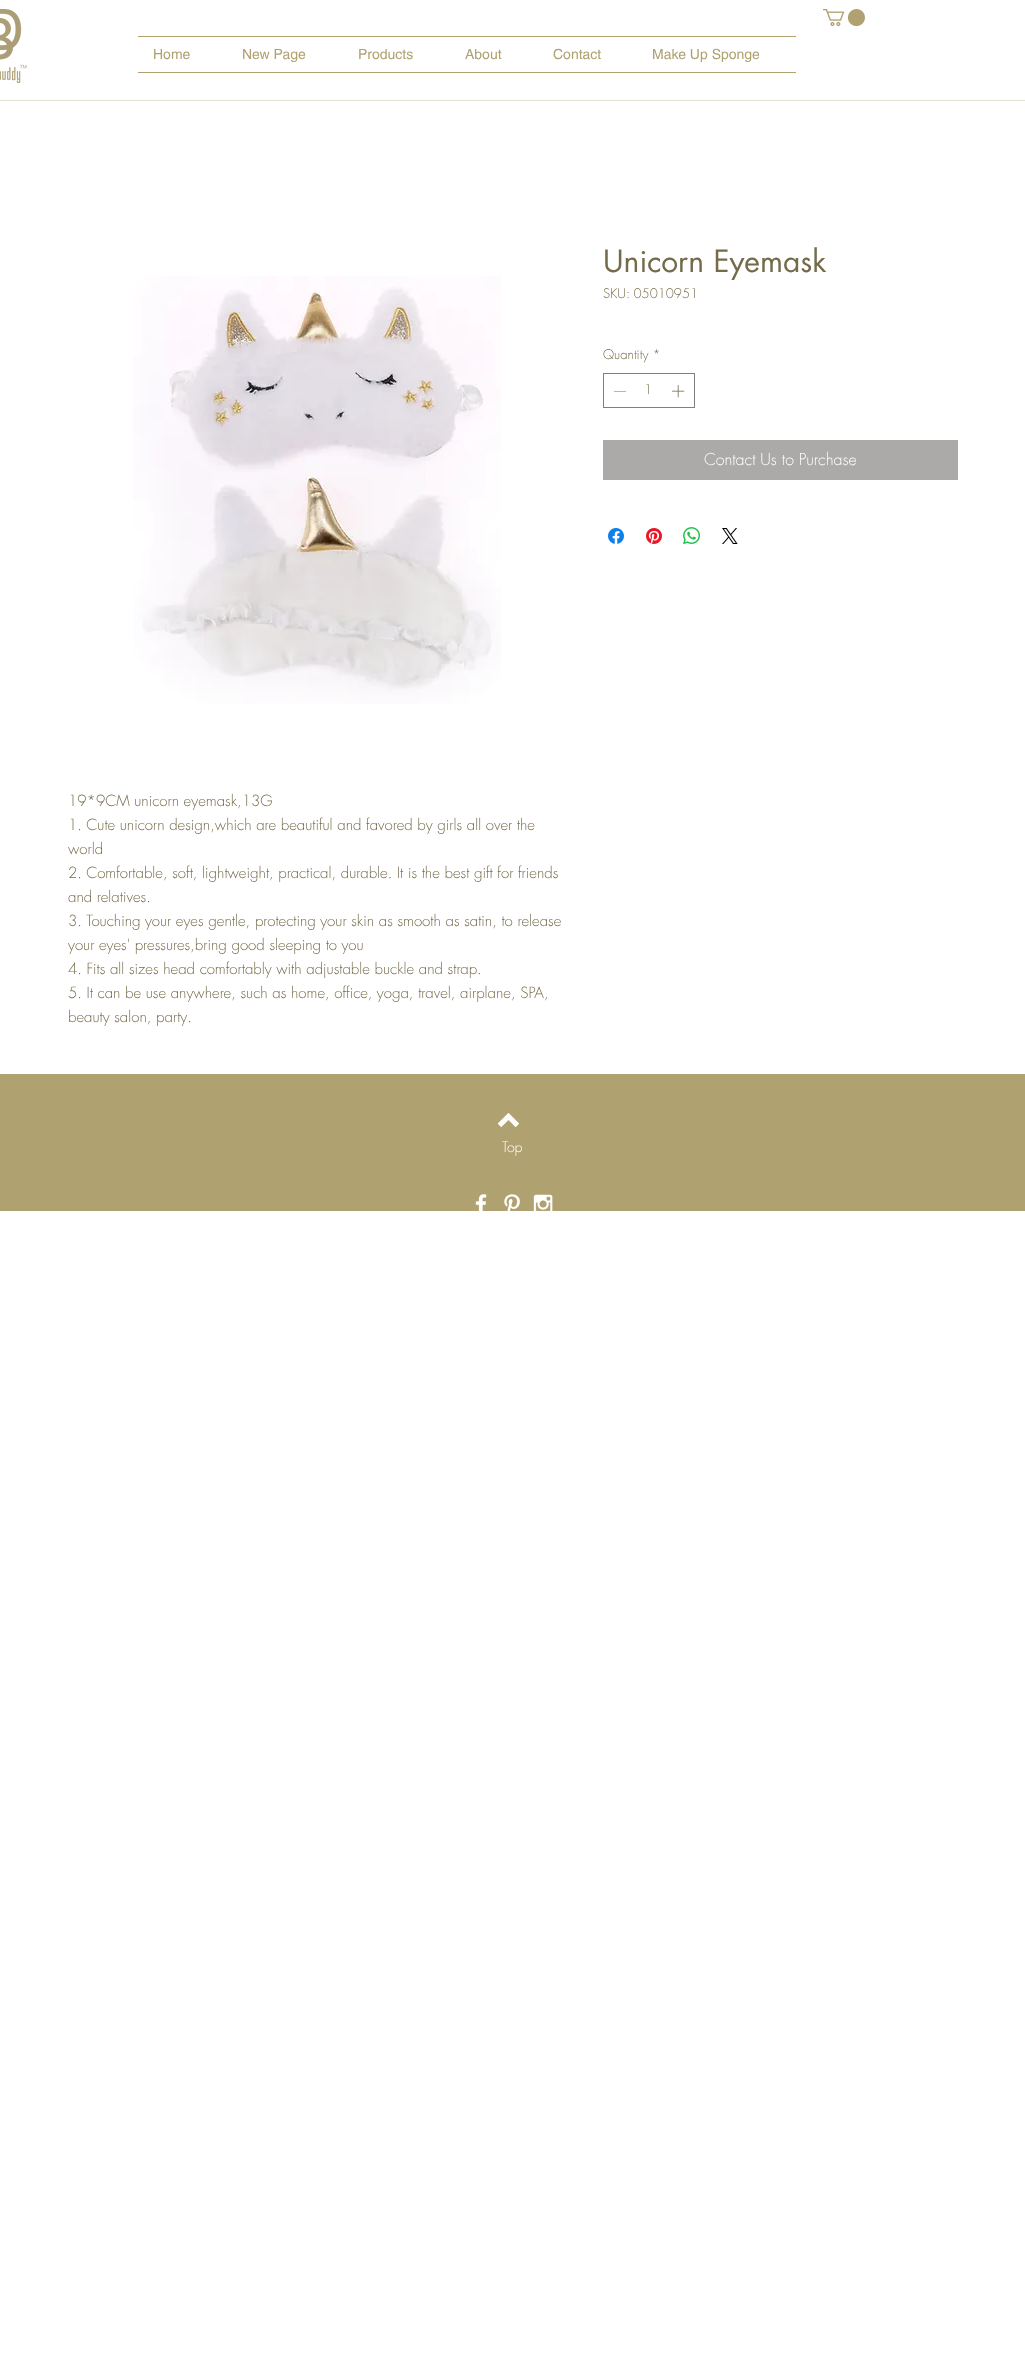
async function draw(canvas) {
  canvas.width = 1025;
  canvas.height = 2373;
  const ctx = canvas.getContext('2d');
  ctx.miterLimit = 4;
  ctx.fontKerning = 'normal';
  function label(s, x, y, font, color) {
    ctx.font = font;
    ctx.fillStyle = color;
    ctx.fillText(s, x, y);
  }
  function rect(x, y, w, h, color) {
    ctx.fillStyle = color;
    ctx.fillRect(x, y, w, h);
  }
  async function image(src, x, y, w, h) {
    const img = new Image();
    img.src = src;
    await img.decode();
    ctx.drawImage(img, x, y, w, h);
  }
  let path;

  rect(0, 0, 1025, 2373, '#fff');
  await image('assets/img1.png', 0, 9, 27, 74);
  await image('assets/img2.png', 823, 9, 42, 18);
  rect(138, 36, 658, 1, '#b0a171');
  rect(138, 72, 658, 1, '#b0a171');
  label('Home', 153, 59, '14px helvetica', '#b0a171');
  label('New Page', 242, 59, '14px helvetica', '#b0a171');
  label('Products', 358, 59, '14px helvetica', '#b0a171');
  label('About', 465, 59, '14px helvetica', '#b0a171');
  label('Contact', 553, 59, '14px helvetica', '#b0a171');
  label('Make Up Sponge', 652, 59, '14px helvetica', '#b0a171');
  rect(0, 100, 1025, 1, '#e5e1d3');
  label('Unicorn Eyemask', 603, 272, '30px futura', '#756b4b');
  label('SKU: 05010951', 603, 298, '300 13px futura', '#756b4b');
  label('Quantity *', 603, 359, '300 13px futura', '#756b4b');
  ctx.strokeStyle = '#808080';
  ctx.strokeRect(603.5, 373.5, 91, 34);
  path = new Path2D('M626 391V391.5H614V391Z');
  ctx.fill(path, 'evenodd');
  label('1', 644, 394, '300 13px futura', '#756b4b');
  await image('assets/img3.png', 672, 385, 13, 13);
  rect(603, 440, 355, 40, '#aca9a9');
  label('Contact Us to Purchase', 704, 465, '300 16px futura', '#fff');
  await image('assets/img4.png', 608, 528, 16, 16);
  await image('assets/img5.png', 646, 528, 16, 16);
  await image('assets/img6.png', 683, 527, 17, 17);
  await image('assets/img7.png', 722, 528, 16, 16);
  await image('assets/img8.png', 133, 276, 368, 428);
  label('19*9CM unicorn eyemask,13G', 68, 806, '300 15px futura', '#756b4b');
  label('1. Cute unicorn design,which are beautiful and favored by girls all over the', 68, 830, '300 15px futura', '#756b4b');
  label('world', 68, 854, '300 15px futura', '#756b4b');
  label('2. Comfortable, soft, lightweight, practical, durable. It is the best gift for friends', 68, 878, '300 15px futura', '#756b4b');
  label('and relatives.', 68, 902, '300 15px futura', '#756b4b');
  label('3. Touching your eyes gentle, protecting your skin as smooth as satin, to release', 68, 926, '300 15px futura', '#756b4b');
  label('your eyes\' pressures,bring good sleeping to you', 68, 950, '300 15px futura', '#756b4b');
  label('4. Fits all sizes head comfortably with adjustable buckle and strap.', 68, 974, '300 15px futura', '#756b4b');
  label('5. It can be use anywhere, such as home, office, yoga, travel, airplane, SPA,', 68, 998, '300 15px futura', '#756b4b');
  label('beauty salon, party.', 68, 1022, '300 15px futura', '#756b4b');
  rect(0, 1074, 1025, 137, '#b0a171');
  await image('assets/img9.png', 498, 1113, 21, 14);
  label('Top', 502, 1152, '300 14px futura', '#fff');
  await image('assets/img10.png', 475, 1194, 12, 17);
  await image('assets/img11.png', 504, 1194, 16, 17);
  await image('assets/img12.png', 533, 1194, 20, 17);
}

draw(document.querySelector('canvas'));
